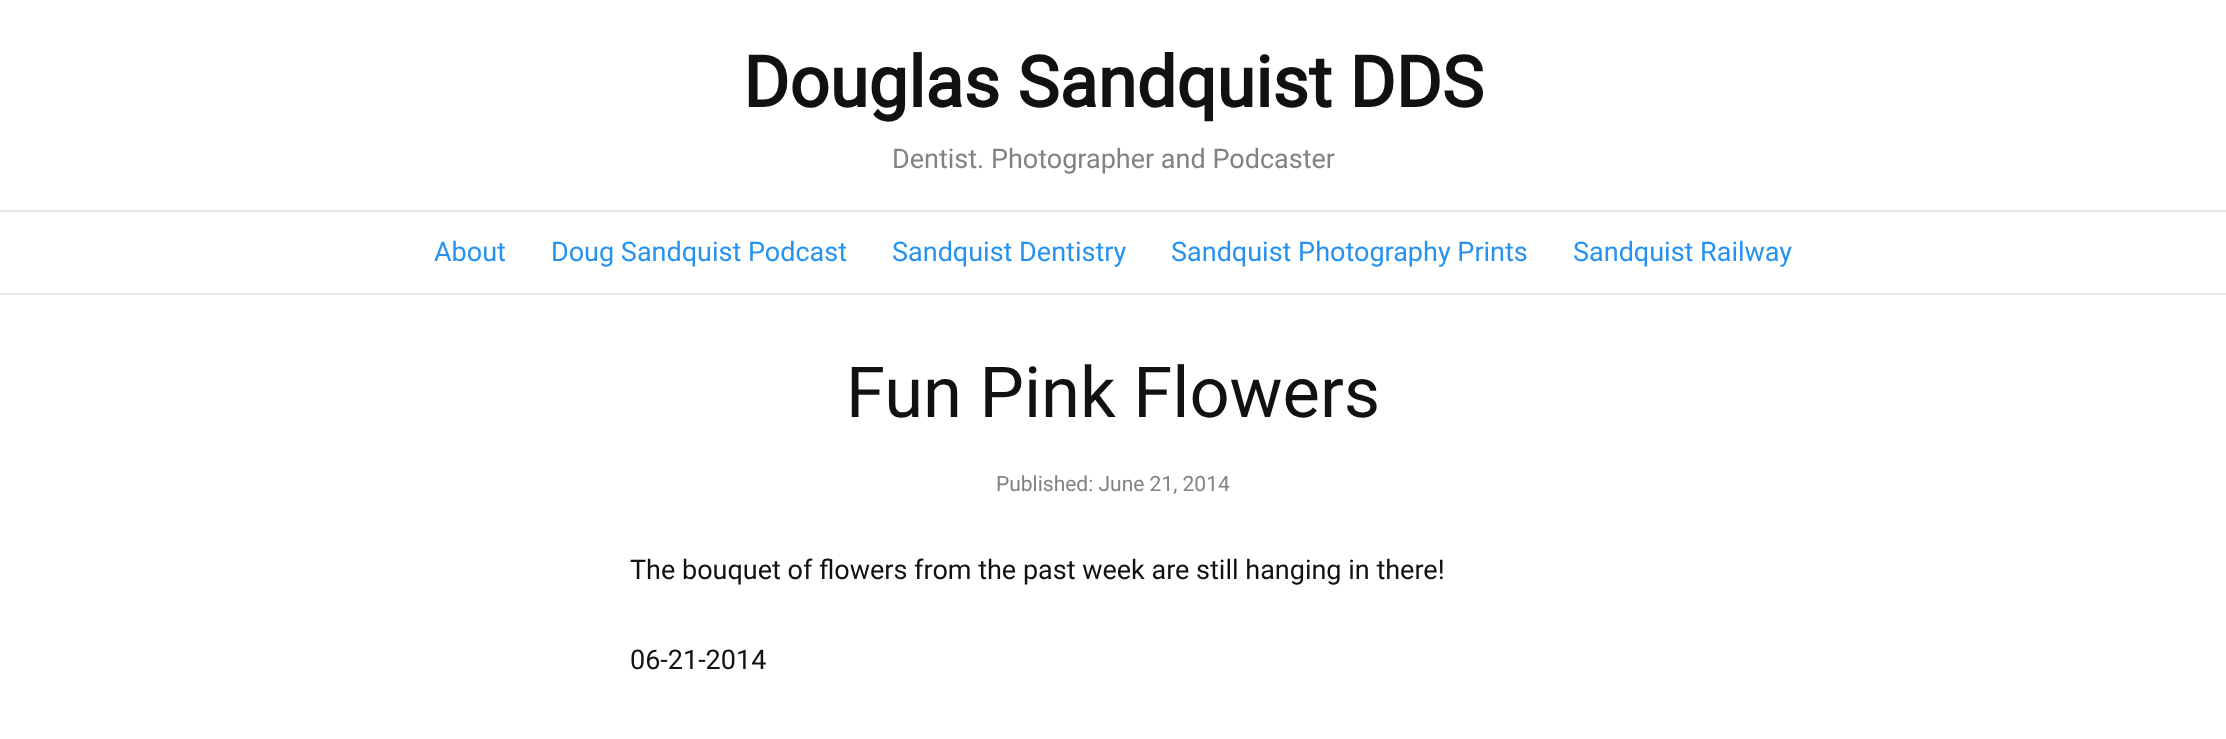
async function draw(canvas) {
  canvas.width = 2226;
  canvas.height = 739;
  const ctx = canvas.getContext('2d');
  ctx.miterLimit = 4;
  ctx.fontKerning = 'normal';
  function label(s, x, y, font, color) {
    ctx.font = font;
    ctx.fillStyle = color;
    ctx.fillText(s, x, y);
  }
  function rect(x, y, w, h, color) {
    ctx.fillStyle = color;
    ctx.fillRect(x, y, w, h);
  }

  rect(0, 0, 2226, 739, '#fff');
  rect(0, 210, 2226, 2, '#e6e6e6');
  label('Douglas Sandquist DDS', 743, 107, 'bold 70.5px Roboto', '#111');
  label('Dentist. Photographer and Podcaster', 892, 168, '27px Roboto', '#828282');
  rect(0, 293, 2226, 2, '#e6e6e6');
  label('About', 434, 261, '27px Roboto', '#2692f0');
  label('Doug Sandquist Podcast', 551, 261, '27px Roboto', '#2692f0');
  label('Sandquist Dentistry', 892, 261, '27px Roboto', '#2692f0');
  label('Sandquist Photography Prints', 1171, 261, '27px Roboto', '#2692f0');
  label('Sandquist Railway', 1573, 261, '27px Roboto', '#2692f0');
  label('Fun Pink Flowers', 846, 417, '70.5px Roboto', '#111');
  label('Published: June 21, 2014', 996, 491, '21px Roboto', '#828282');
  label('The bouquet of flowers from the past week are still hanging in there!', 630, 579, '27px Roboto', '#111');
  label('06-21-2014', 630, 669, '27px Roboto', '#111');
}

draw(document.querySelector('canvas'));
